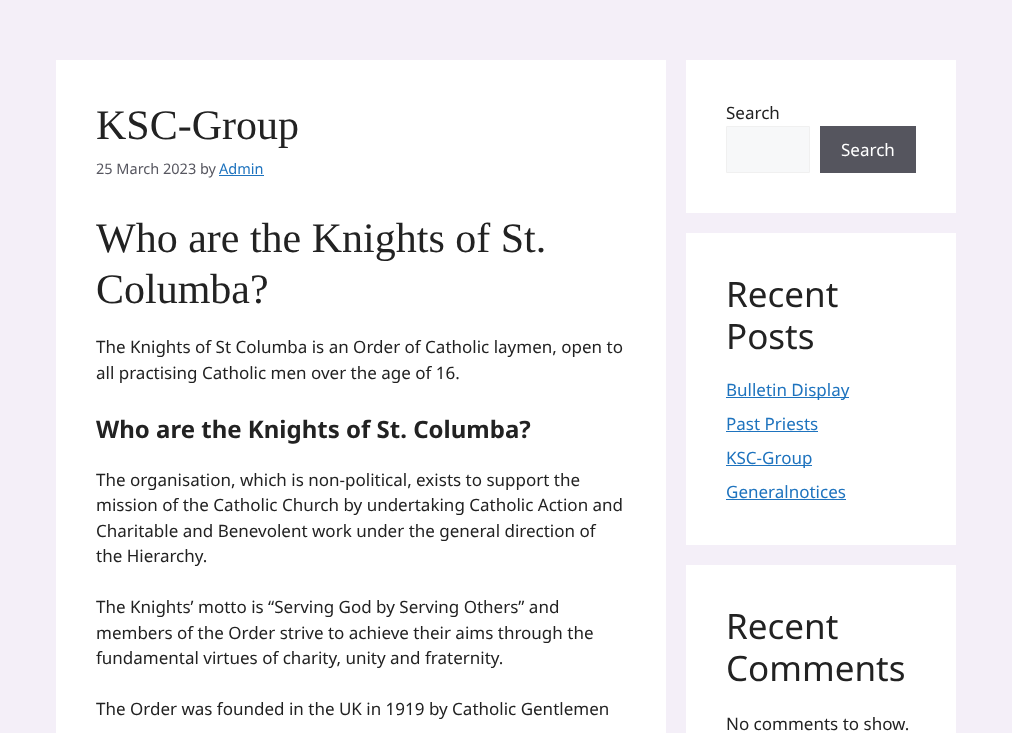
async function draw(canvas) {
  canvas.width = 1012;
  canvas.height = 733;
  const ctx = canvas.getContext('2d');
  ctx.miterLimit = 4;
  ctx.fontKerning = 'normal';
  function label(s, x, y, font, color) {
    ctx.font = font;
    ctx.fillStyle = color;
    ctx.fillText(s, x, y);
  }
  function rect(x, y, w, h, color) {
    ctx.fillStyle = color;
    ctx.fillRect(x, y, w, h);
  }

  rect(0, 0, 1012, 733, '#f4eff8');
  rect(56, 60, 610, 673, '#fff');
  label('KSC-Group', 96, 139, '42px Liberation Serif', '#222');
  label('25 March 2023 by', 96, 174, '14.5px Noto Sans', '#575760');
  label('Admin', 219, 174, '14.5px Noto Sans', '#1e73be');
  rect(219, 175, 45, 1, '#1e73be');
  label('Who are the Knights of St.', 96, 252, '42px Liberation Serif', '#222');
  label('Columba?', 96, 303, '42px Liberation Serif', '#222');
  label('The Knights of St Columba is an Order of Catholic laymen, open to', 96, 353, '17px Noto Sans', '#222');
  label('all practising Catholic men over the age of 16.', 96, 379, '17px Noto Sans', '#222');
  label('Who are the Knights of St. Columba?', 96, 438, 'bold 24px Noto Sans', '#222');
  label('The organisation, which is non-political, exists to support the', 96, 486, '17px Noto Sans', '#222');
  label('mission of the Catholic Church by undertaking Catholic Action and', 96, 511, '17px Noto Sans', '#222');
  label('Charitable and Benevolent work under the general direction of', 96, 537, '17px Noto Sans', '#222');
  label('the Hierarchy.', 96, 562, '17px Noto Sans', '#222');
  label('The Knights’ motto is “Serving God by Serving Others” and', 96, 613, '17px Noto Sans', '#222');
  label('members of the Order strive to achieve their aims through the', 96, 639, '17px Noto Sans', '#222');
  label('fundamental virtues of charity, unity and fraternity.', 96, 664, '17px Noto Sans', '#222');
  label('The Order was founded in the UK in 1919 by Catholic Gentlemen', 96, 715, '17px Noto Sans', '#222');
  rect(686, 60, 270, 153, '#fff');
  label('Search', 726, 119, '17px Noto Sans', '#222');
  ctx.fillStyle = '#f7f8f9';
  ctx.beginPath();
  ctx.rect(726.5, 126.5, 83, 46);
  ctx.fill();
  ctx.strokeStyle = '#f0f0f0';
  ctx.stroke();
  rect(820, 126, 96, 47, '#55555e');
  label('Search', 841, 156, '17px Noto Sans', '#fff');
  rect(686, 233, 270, 312, '#fff');
  label('Recent', 726, 307, '35px Noto Sans', '#222');
  label('Posts', 726, 349, '35px Noto Sans', '#222');
  rect(726, 397, 123, 1, '#1e73be');
  label('Bulletin Display', 726, 396, '17px Noto Sans', '#1e73be');
  label('Past Priests', 726, 430, '17px Noto Sans', '#1e73be');
  rect(726, 431, 92, 1, '#1e73be');
  rect(726, 465, 86, 1, '#1e73be');
  label('KSC-Group', 726, 464, '17px Noto Sans', '#1e73be');
  label('Generalnotices', 726, 498, '17px Noto Sans', '#1e73be');
  rect(726, 499, 120, 1, '#1e73be');
  rect(686, 565, 270, 168, '#fff');
  label('Recent', 726, 639, '35px Noto Sans', '#222');
  label('Comments', 726, 681, '35px Noto Sans', '#222');
  label('No comments to show.', 726, 730, '17px Noto Sans', '#222');
}

draw(document.querySelector('canvas'));
